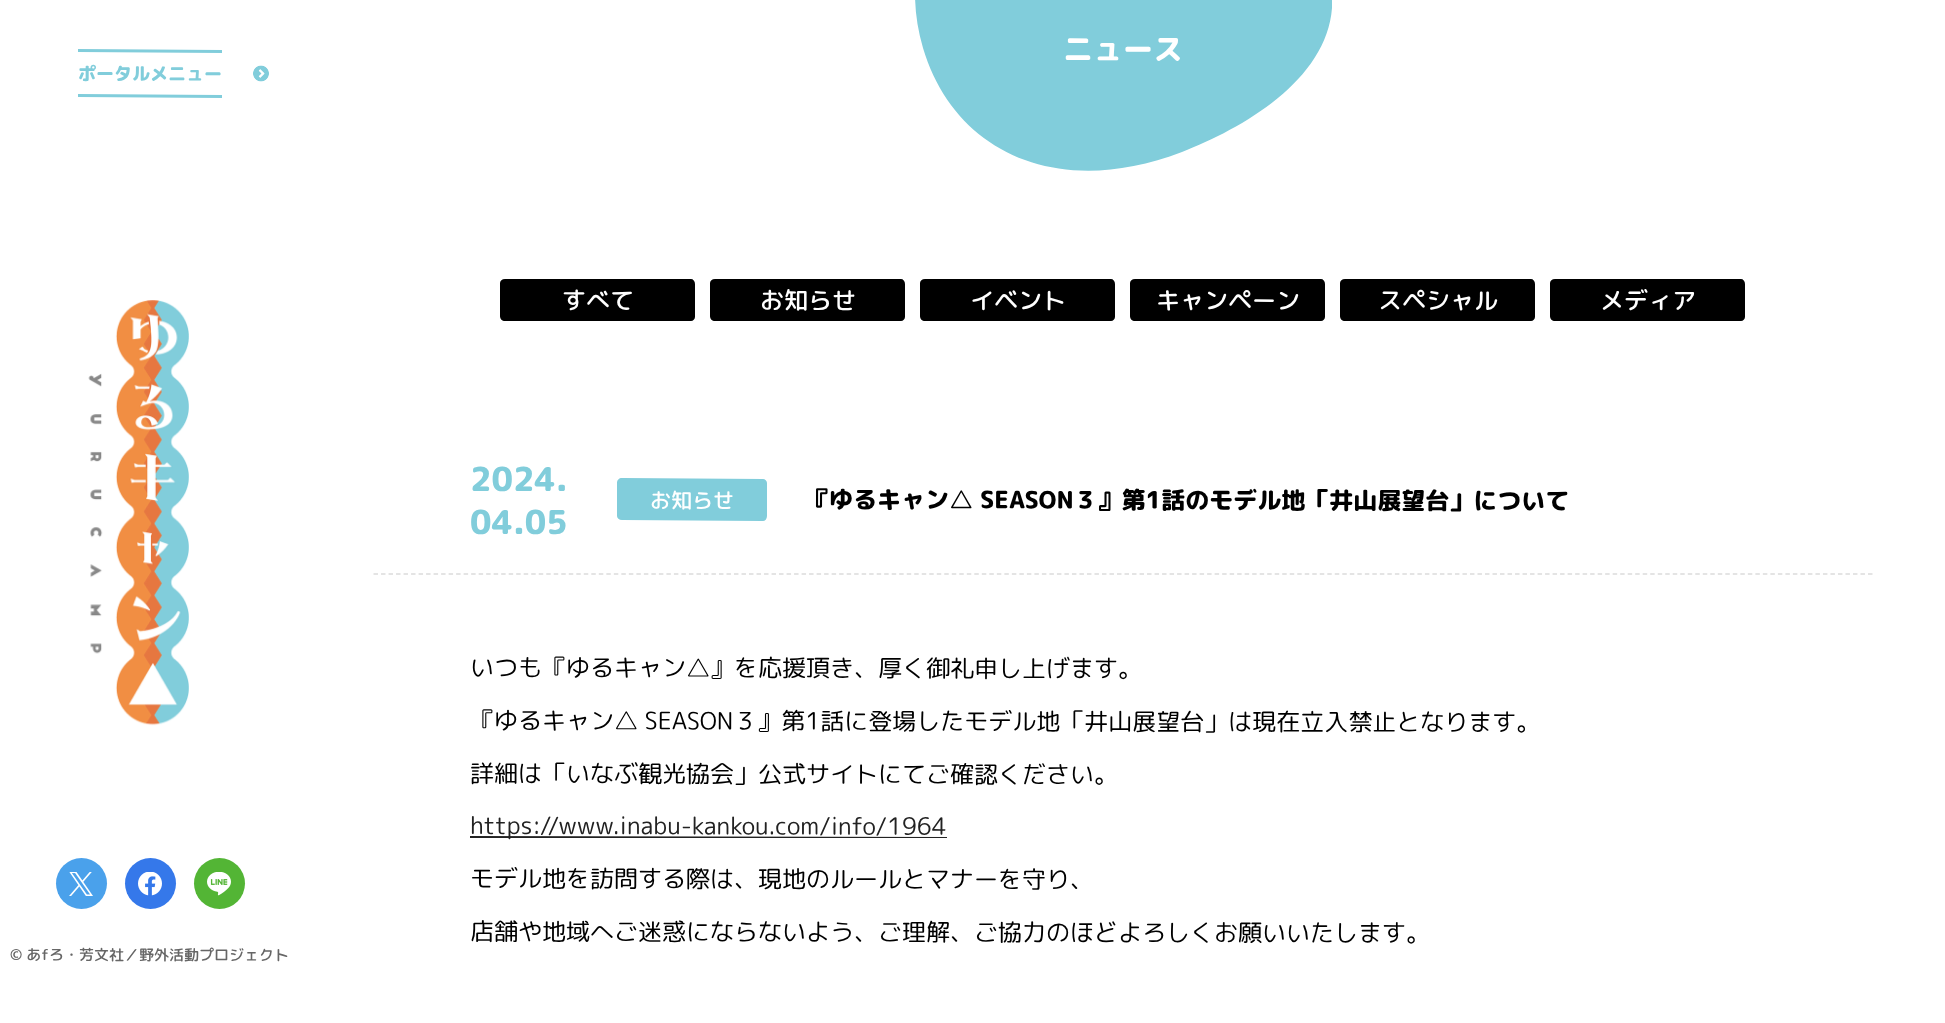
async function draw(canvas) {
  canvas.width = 1945;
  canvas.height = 1023;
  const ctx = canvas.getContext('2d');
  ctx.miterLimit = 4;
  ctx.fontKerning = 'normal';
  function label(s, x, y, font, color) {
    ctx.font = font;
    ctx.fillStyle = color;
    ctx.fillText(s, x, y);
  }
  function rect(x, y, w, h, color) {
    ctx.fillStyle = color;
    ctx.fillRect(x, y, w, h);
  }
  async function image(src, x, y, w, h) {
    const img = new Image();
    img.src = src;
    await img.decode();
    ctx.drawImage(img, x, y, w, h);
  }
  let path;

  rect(0, 0, 1945, 1023, '#fff');
  ctx.fillStyle = '#81cddb';
  path = new Path2D('M78 49L222 50V53L78 52Z');
  ctx.fill(path);
  path = new Path2D('M78 94L222 95V98L78 97Z');
  ctx.fill(path);
  ctx.font = '800 18px "Rounded Mplus 1c"';
  ctx.save();
  ctx.translate(78, 80);
  ctx.rotate(0.1 * Math.PI / 180);
  ctx.fillText('ポータルメニュー', 0, 0);
  ctx.restore();
  await image('assets/img1.png', 253, 65, 16, 17);
  await image('assets/img2.png', 88, 300, 101, 426);
  ctx.fillStyle = '#4aa1eb';
  ctx.beginPath();
  ctx.arc(81.5, 883.5, 25.5, 0, 2 * Math.PI);
  ctx.fill();
  await image('assets/img3.png', 69, 872, 24, 24);
  ctx.fillStyle = '#3578ea';
  ctx.beginPath();
  ctx.arc(150.5, 883.5, 25.5, 0, 2 * Math.PI);
  ctx.fill();
  await image('assets/img4.png', 138, 872, 24, 24);
  ctx.fillStyle = '#53b535';
  ctx.beginPath();
  ctx.arc(219.5, 883.5, 25.5, 0, 2 * Math.PI);
  ctx.fill();
  await image('assets/img5.png', 207, 872, 24, 24);
  ctx.font = '500 15px "Rounded Mplus 1c"';
  ctx.fillStyle = '#666';
  ctx.save();
  ctx.translate(10, 960);
  ctx.rotate(0.1 * Math.PI / 180);
  ctx.fillText('© あfろ・芳文社／野外活動プロジェクト', 0, 0);
  ctx.restore();
  ctx.save();
  ctx.beginPath();
  ctx.rect(915, 0, 417, 171);
  ctx.clip();
  ctx.fillStyle = '#81cddb';
  path = new Path2D('M1182 152C1246 127 1338 74 1332-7C1326-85 1281-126 1214-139C1152-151 1072-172 991-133C928-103 900-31 923 48C954 152 1057 200 1182 152Z');
  ctx.fill(path, 'evenodd');
  ctx.restore();
  ctx.font = '800 30px "Rounded Mplus 1c"';
  ctx.fillStyle = '#fff';
  ctx.save();
  ctx.translate(1063, 60);
  ctx.rotate(0.1 * Math.PI / 180);
  ctx.fillText('ニュース', 0, 0);
  ctx.restore();
  ctx.fillStyle = '#000';
  path = new Path2D('M505 279H691C693 279 695 281 695 284V317C695 319 693 321 691 321H505C502 321 500 319 500 316V283C500 281 502 279 505 279Z');
  ctx.fill(path);
  ctx.font = '500 24px "Rounded Mplus 1c"';
  ctx.fillStyle = '#fff';
  ctx.save();
  ctx.translate(562, 309);
  ctx.rotate(0.1 * Math.PI / 180);
  ctx.fillText('すべて', 0, 0);
  ctx.restore();
  ctx.fillStyle = '#000';
  path = new Path2D('M715 279H901C903 279 905 281 905 284V317C905 319 903 321 901 321H715C712 321 710 319 710 316V283C710 281 712 279 715 279Z');
  ctx.fill(path);
  ctx.fillStyle = '#fff';
  ctx.save();
  ctx.translate(760, 309);
  ctx.rotate(0.1 * Math.PI / 180);
  ctx.fillText('お知らせ', 0, 0);
  ctx.restore();
  ctx.fillStyle = '#000';
  path = new Path2D('M925 279H1111C1113 279 1115 281 1115 284V317C1115 319 1113 321 1111 321H925C922 321 920 319 920 316V283C920 281 922 279 925 279Z');
  ctx.fill(path);
  ctx.fillStyle = '#fff';
  ctx.save();
  ctx.translate(970, 309);
  ctx.rotate(0.1 * Math.PI / 180);
  ctx.fillText('イベント', 0, 0);
  ctx.restore();
  ctx.fillStyle = '#000';
  path = new Path2D('M1135 279H1321C1323 279 1325 281 1325 284V317C1325 319 1323 321 1321 321H1135C1132 321 1130 319 1130 316V283C1130 281 1132 279 1135 279Z');
  ctx.fill(path);
  ctx.fillStyle = '#fff';
  ctx.save();
  ctx.translate(1156, 309);
  ctx.rotate(0.1 * Math.PI / 180);
  ctx.fillText('キャンペーン', 0, 0);
  ctx.restore();
  ctx.fillStyle = '#000';
  path = new Path2D('M1345 279H1531C1533 279 1535 281 1535 284V317C1535 319 1533 321 1531 321H1345C1342 321 1340 319 1340 316V283C1340 281 1342 279 1345 279Z');
  ctx.fill(path);
  ctx.fillStyle = '#fff';
  ctx.save();
  ctx.translate(1378, 309);
  ctx.rotate(0.1 * Math.PI / 180);
  ctx.fillText('スペシャル', 0, 0);
  ctx.restore();
  ctx.fillStyle = '#000';
  path = new Path2D('M1555 279H1741C1743 279 1745 281 1745 284V317C1745 319 1743 321 1741 321H1555C1552 321 1550 319 1550 316V283C1550 281 1552 279 1555 279Z');
  ctx.fill(path);
  ctx.fillStyle = '#fff';
  ctx.save();
  ctx.translate(1600, 309);
  ctx.rotate(0.1 * Math.PI / 180);
  ctx.fillText('メディア', 0, 0);
  ctx.restore();
  path = new Path2D('M373.5 574H1873.5');
  ctx.strokeStyle = '#dcdcdc';
  ctx.lineWidth = 1.5;
  ctx.setLineDash([4.5, 3.01]);
  ctx.stroke(path);
  label('2024.', 470, 491, '800 33px "Rounded Mplus 1c"', '#81cddb');
  label('04.05', 470, 534, '800 33px "Rounded Mplus 1c"', '#81cddb');
  path = new Path2D('M622 478L763 479C765 479 767 481 767 483V516C767 519 765 521 763 521L622 520C619 520 617 518 617 516V483C617 480 619 478 622 478Z');
  ctx.fill(path);
  ctx.font = '500 21px "Rounded Mplus 1c"';
  ctx.fillStyle = '#fff';
  ctx.save();
  ctx.translate(650, 508);
  ctx.rotate(0.1 * Math.PI / 180);
  ctx.fillText('お知らせ', 0, 0);
  ctx.restore();
  ctx.font = '800 24px "Rounded Mplus 1c"';
  ctx.fillStyle = '#000';
  ctx.save();
  ctx.translate(805, 508);
  ctx.rotate(0.1 * Math.PI / 180);
  ctx.fillText('『ゆるキャン△ SEASON３』第1話のモデル地「井山展望台」について', 0, 0);
  ctx.restore();
  ctx.font = '24px "Rounded Mplus 1c"';
  ctx.save();
  ctx.translate(470, 676);
  ctx.rotate(0.1 * Math.PI / 180);
  ctx.fillText('いつも『ゆるキャン△』を応援頂き、厚く御礼申し上げます。', 0, 0);
  ctx.restore();
  ctx.save();
  ctx.translate(470, 729);
  ctx.rotate(0.1 * Math.PI / 180);
  ctx.fillText('『ゆるキャン△ SEASON３』第1話に登場したモデル地「井山展望台」は現在立入禁止となります。', 0, 0);
  ctx.restore();
  ctx.save();
  ctx.translate(470, 782);
  ctx.rotate(0.1 * Math.PI / 180);
  ctx.fillText('詳細は「いなぶ観光協会」公式サイトにてご確認ください。', 0, 0);
  ctx.restore();
  ctx.fillStyle = '#222';
  path = new Path2D('M470 836L947 837V838H470Z');
  ctx.fill(path);
  ctx.save();
  ctx.translate(470, 834);
  ctx.rotate(0.1 * Math.PI / 180);
  ctx.fillText('https://www.inabu-kankou.com/info/1964', 0, 0);
  ctx.restore();
  ctx.fillStyle = '#000';
  ctx.save();
  ctx.translate(470, 887);
  ctx.rotate(0.1 * Math.PI / 180);
  ctx.fillText('モデル地を訪問する際は、現地のルールとマナーを守り、', 0, 0);
  ctx.restore();
  ctx.save();
  ctx.translate(470, 940);
  ctx.rotate(0.1 * Math.PI / 180);
  ctx.fillText('店舗や地域へご迷惑にならないよう、ご理解、ご協力のほどよろしくお願いいたします。', 0, 0);
  ctx.restore();
}

draw(document.querySelector('canvas'));
